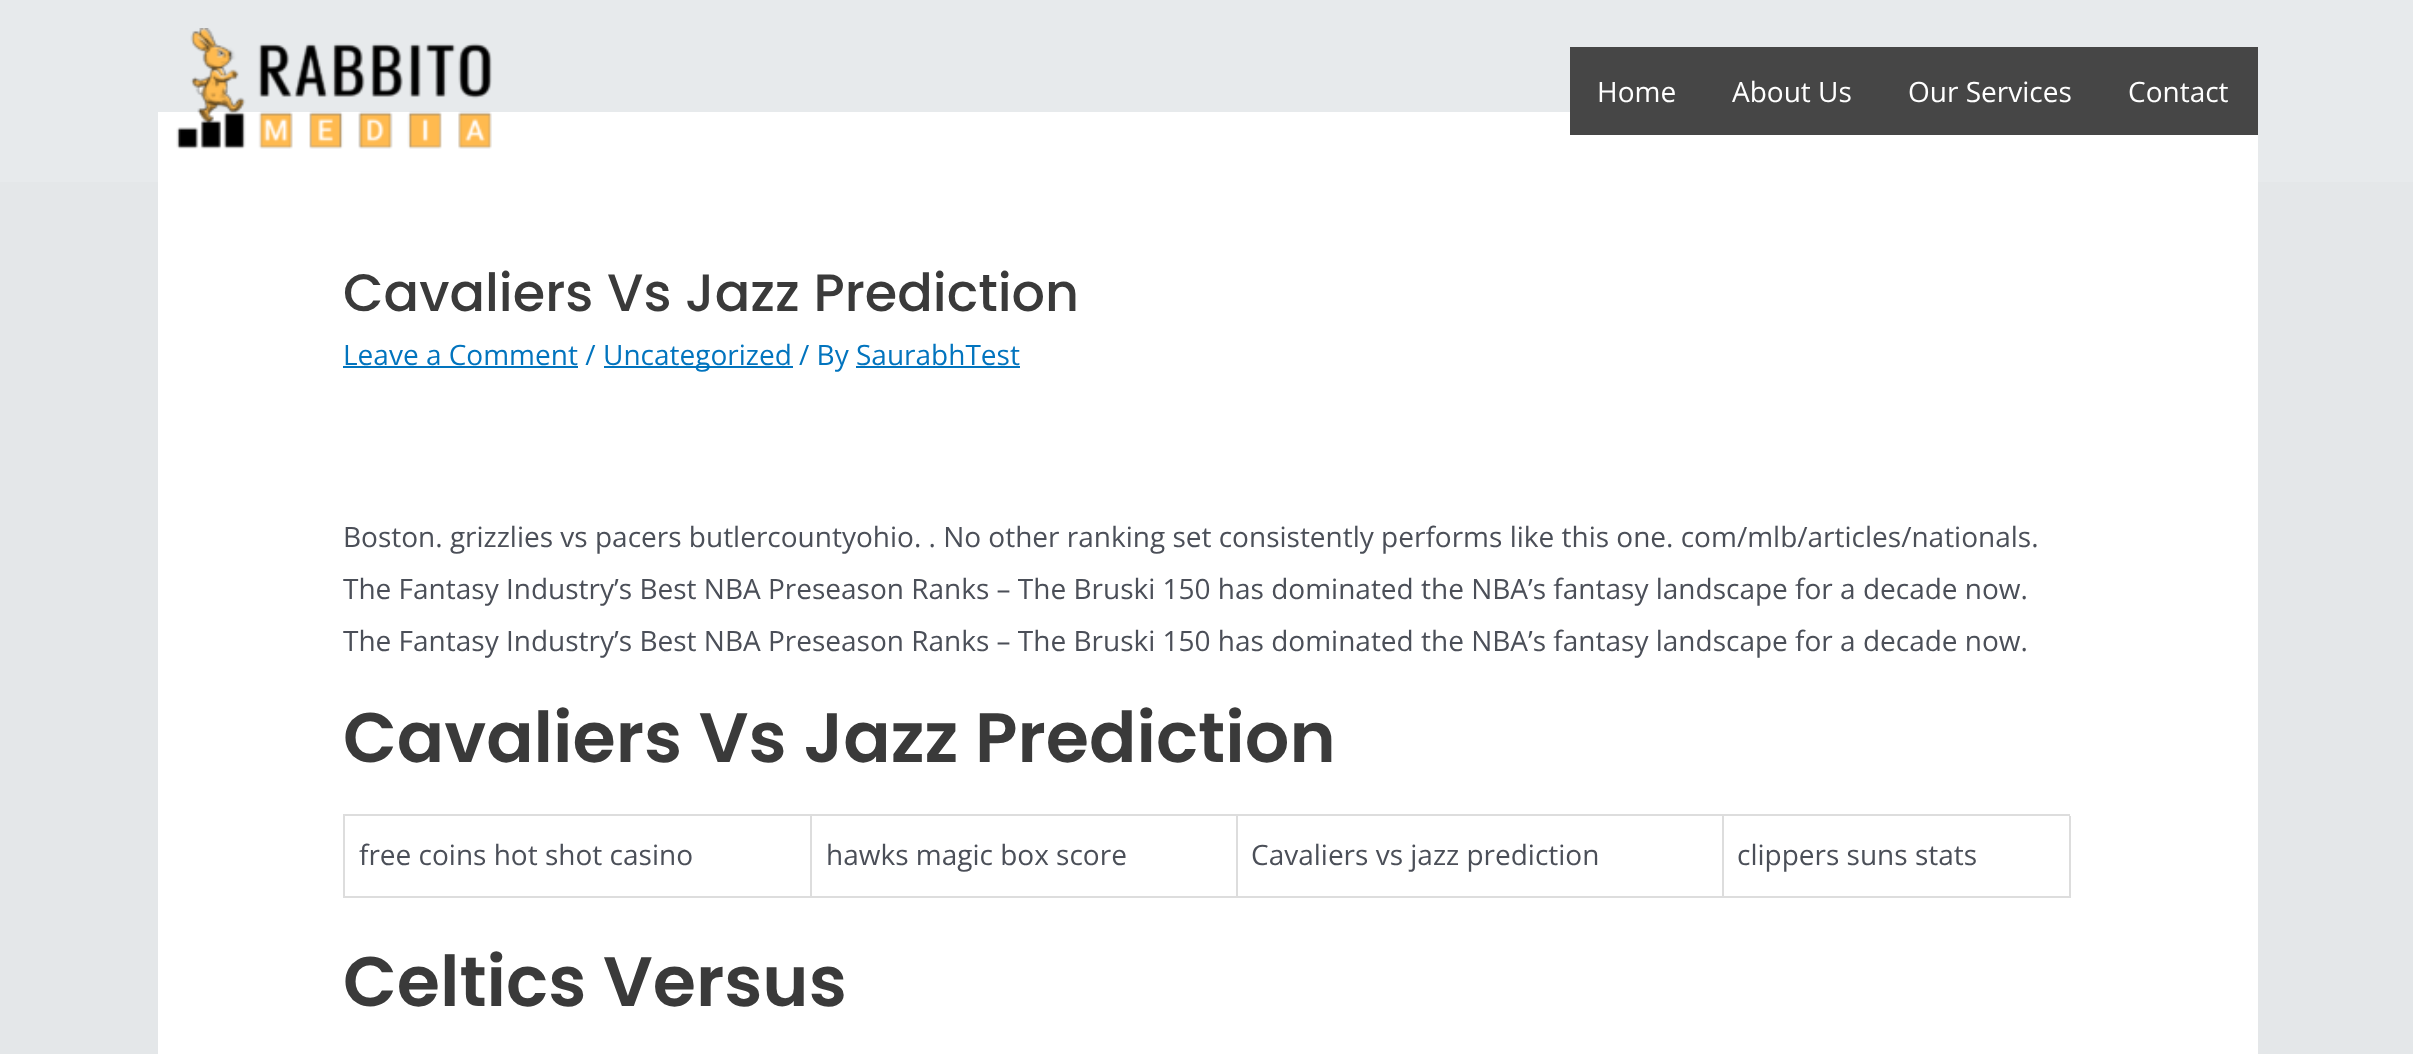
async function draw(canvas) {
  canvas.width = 2413;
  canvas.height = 1054;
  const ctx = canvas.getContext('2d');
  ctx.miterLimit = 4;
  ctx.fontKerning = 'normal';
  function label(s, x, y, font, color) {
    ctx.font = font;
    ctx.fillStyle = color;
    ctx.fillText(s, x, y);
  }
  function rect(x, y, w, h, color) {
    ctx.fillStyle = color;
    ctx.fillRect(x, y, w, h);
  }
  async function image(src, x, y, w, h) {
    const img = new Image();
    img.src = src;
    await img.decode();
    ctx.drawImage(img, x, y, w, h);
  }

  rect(0, 0, 2413, 1054, '#e4e7e9');
  rect(0, 0, 2413, 182, '#e7eaec');
  rect(158, 112, 2100, 942, '#fff');
  await image('assets/img1.png', 176, 28, 316, 121);
  rect(1570, 47, 688, 88, '#464646');
  label('Home', 1597, 102, '28px Open Sans', '#fff');
  label('About Us', 1732, 102, '28px Open Sans', '#fff');
  label('Our Services', 1908, 102, '28px Open Sans', '#fff');
  label('Contact', 2128, 102, '28px Open Sans', '#fff');
  label('Cavaliers Vs Jazz Prediction', 343, 311, '500 52.5px Poppins', '#3a3a3a');
  label('Leave a Comment /', 343, 365, '28px Open Sans', '#0274be');
  rect(343, 366, 235, 2, '#0274be');
  rect(604, 366, 189, 2, '#0274be');
  label('Uncategorized / By SaurabhTest', 603, 365, '28px Open Sans', '#0274be');
  rect(856, 366, 164, 2, '#0274be');
  label('Boston. grizzlies vs pacers butlercountyohio. . No other ranking set consistently performs like this one. com/mlb/articles/nationals.', 343, 547, '28px Open Sans', '#4b4f58');
  label('The Fantasy Industry’s Best NBA Preseason Ranks – The Bruski 150 has dominated the NBA’s fantasy landscape for a decade now.', 343, 599, '28px Open Sans', '#4b4f58');
  label('The Fantasy Industry’s Best NBA Preseason Ranks – The Bruski 150 has dominated the NBA’s fantasy landscape for a decade now.', 343, 651, '28px Open Sans', '#4b4f58');
  label('Cavaliers Vs Jazz Prediction', 343, 762, '600 70px Poppins', '#3a3a3a');
  rect(343, 814, 1727, 2, '#ddd');
  rect(343, 814, 2, 84, '#ddd');
  rect(810, 816, 2, 82, '#ddd');
  rect(345, 896, 467, 2, '#ddd');
  label('free coins hot shot casino', 359, 865, '28px Open Sans', '#4b4f58');
  rect(1236, 816, 2, 82, '#ddd');
  rect(812, 896, 425, 2, '#ddd');
  label('hawks magic box score', 826, 865, '28px Open Sans', '#4b4f58');
  rect(1722, 816, 2, 82, '#ddd');
  rect(1237, 896, 487, 2, '#ddd');
  label('Cavaliers vs jazz prediction', 1251, 865, '28px Open Sans', '#4b4f58');
  rect(2069, 816, 2, 82, '#ddd');
  rect(1724, 896, 346, 2, '#ddd');
  label('clippers suns stats', 1737, 865, '28px Open Sans', '#4b4f58');
  label('Celtics Versus', 343, 1006, '600 70px Poppins', '#3a3a3a');
}

draw(document.querySelector('canvas'));
